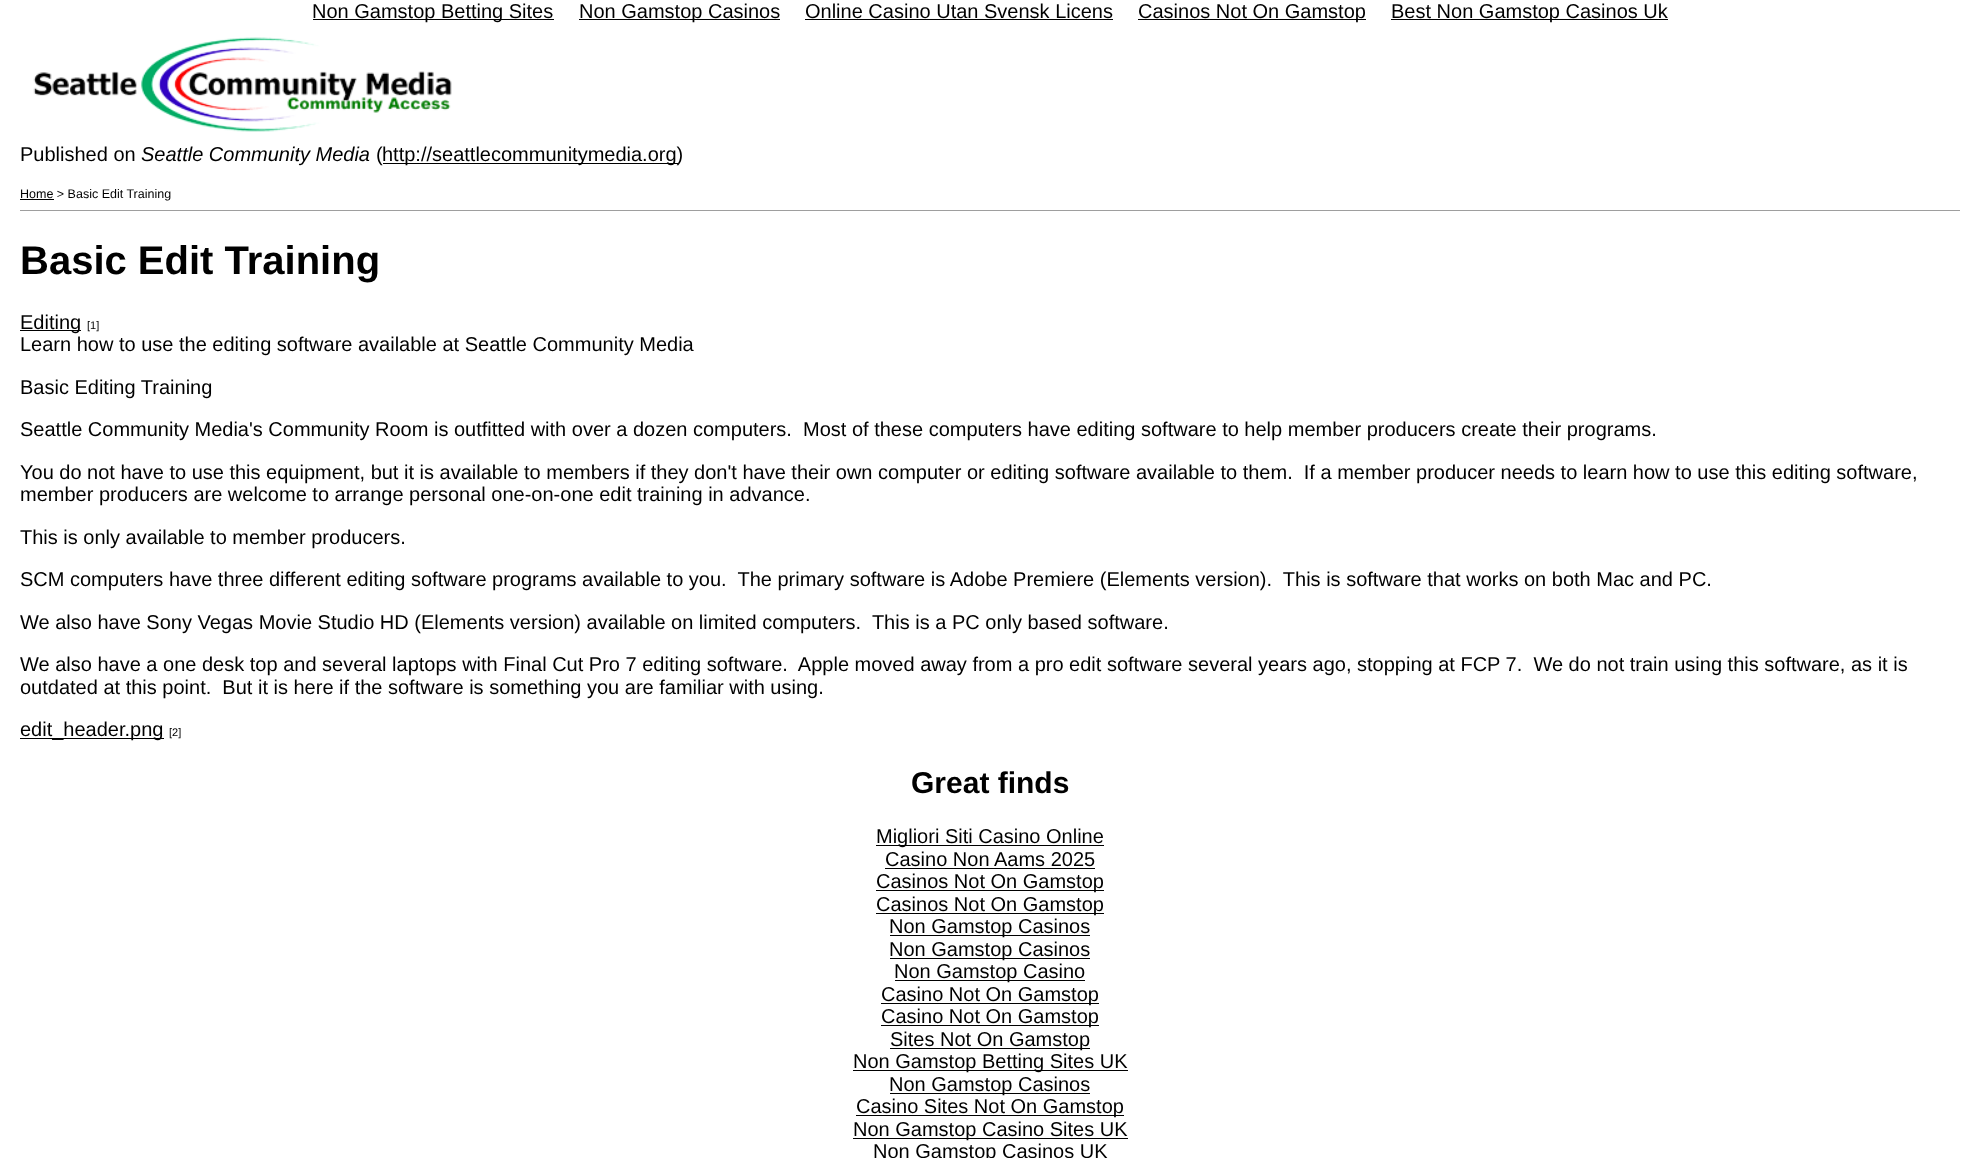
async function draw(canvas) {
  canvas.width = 1980;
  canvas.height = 1158;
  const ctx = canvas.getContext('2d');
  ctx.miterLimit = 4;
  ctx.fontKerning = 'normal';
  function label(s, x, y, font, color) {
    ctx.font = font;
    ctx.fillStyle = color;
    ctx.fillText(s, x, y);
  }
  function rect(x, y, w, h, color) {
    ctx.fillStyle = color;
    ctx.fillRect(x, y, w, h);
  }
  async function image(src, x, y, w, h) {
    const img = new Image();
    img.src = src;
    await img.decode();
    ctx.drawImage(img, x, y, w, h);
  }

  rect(0, 0, 1980, 1158, '#fff');
  rect(313, 19, 241, 1, '#000');
  label('Non Gamstop Betting Sites', 312, 18, '20px Liberation Sans', '#000');
  rect(579, 19, 201, 1, '#000');
  label('Non Gamstop Casinos', 579, 18, '20px Liberation Sans', '#000');
  label('Online Casino Utan Svensk Licens', 805, 18, '20px Liberation Sans', '#000');
  rect(805, 19, 308, 1, '#000');
  rect(1138, 19, 228, 1, '#000');
  label('Casinos Not On Gamstop', 1138, 18, '20px Liberation Sans', '#000');
  rect(1391, 19, 277, 1, '#000');
  label('Best Non Gamstop Casinos Uk', 1391, 18, '20px Liberation Sans', '#000');
  await image('assets/img1.png', 33, 37, 419, 95);
  label('Published on', 20, 161, '20px Liberation Sans', '#000');
  label('Seattle Community Media', 141, 161, 'italic 20px Liberation Sans', '#000');
  label('(', 376, 161, '20px Liberation Sans', '#000');
  rect(383, 163, 295, 1, '#000');
  label('http://seattlecommunitymedia.org)', 382, 161, '20px Liberation Sans', '#000');
  rect(20, 199, 34, 1, '#000');
  label('Home > Basic Edit Training', 20, 198, '12.5px Liberation Sans', '#000');
  rect(20, 210, 1940, 1, '#9e9e9e');
  label('Basic Edit Training', 20, 274, 'bold 40px Liberation Sans', '#000');
  rect(20, 330, 61, 1, '#000');
  label('Editing', 20, 329, '20px Liberation Sans', '#000');
  label('[1]', 87, 329, '11px Liberation Sans', '#000');
  label('Learn how to use the editing software available at Seattle Community Media', 20, 351, '20px Liberation Sans', '#000');
  label('Basic Editing Training', 20, 394, '20px Liberation Sans', '#000');
  label('Seattle Community Media\'s Community Room is outfitted with over a dozen computers.  Most of these computers have editing software to help member producers create their programs.', 20, 436, '20px Liberation Sans', '#000');
  label('You do not have to use this equipment, but it is available to members if they don\'t have their own computer or editing software available to them.  If a member producer needs to learn how to use this editing software,', 20, 479, '20px Liberation Sans', '#000');
  label('member producers are welcome to arrange personal one-on-one edit training in advance.', 20, 501, '20px Liberation Sans', '#000');
  label('This is only available to member producers.', 20, 544, '20px Liberation Sans', '#000');
  label('SCM computers have three different editing software programs available to you.  The primary software is Adobe Premiere (Elements version).  This is software that works on both Mac and PC.', 20, 586, '20px Liberation Sans', '#000');
  label('We also have Sony Vegas Movie Studio HD (Elements version) available on limited computers.  This is a PC only based software.', 20, 629, '20px Liberation Sans', '#000');
  label('We also have a one desk top and several laptops with Final Cut Pro 7 editing software.  Apple moved away from a pro edit software several years ago, stopping at FCP 7.  We do not train using this software, as it is', 20, 671, '20px Liberation Sans', '#000');
  label('outdated at this point.  But it is here if the software is something you are familiar with using.', 20, 694, '20px Liberation Sans', '#000');
  rect(20, 738, 144, 1, '#000');
  label('edit_header.png', 20, 736, '20px Liberation Sans', '#000');
  label('[2]', 169, 736, '11px Liberation Sans', '#000');
  label('Great finds', 911, 793, 'bold 30px Liberation Sans', '#000');
  rect(876, 845, 228, 1, '#000');
  label('Migliori Siti Casino Online', 876, 843, '20px Liberation Sans', '#000');
  label('Casino Non Aams 2025', 885, 866, '20px Liberation Sans', '#000');
  rect(885, 868, 210, 1, '#000');
  rect(876, 890, 228, 1, '#000');
  label('Casinos Not On Gamstop', 876, 888, '20px Liberation Sans', '#000');
  rect(876, 913, 228, 1, '#000');
  label('Casinos Not On Gamstop', 876, 911, '20px Liberation Sans', '#000');
  rect(890, 935, 200, 1, '#000');
  label('Non Gamstop Casinos', 889, 933, '20px Liberation Sans', '#000');
  rect(890, 958, 200, 1, '#000');
  label('Non Gamstop Casinos', 889, 956, '20px Liberation Sans', '#000');
  rect(895, 980, 190, 1, '#000');
  label('Non Gamstop Casino', 894, 978, '20px Liberation Sans', '#000');
  rect(881, 1003, 218, 1, '#000');
  label('Casino Not On Gamstop', 881, 1001, '20px Liberation Sans', '#000');
  rect(881, 1025, 218, 1, '#000');
  label('Casino Not On Gamstop', 881, 1023, '20px Liberation Sans', '#000');
  rect(890, 1048, 200, 1, '#000');
  label('Sites Not On Gamstop', 890, 1046, '20px Liberation Sans', '#000');
  rect(853, 1070, 275, 1, '#000');
  label('Non Gamstop Betting Sites UK', 853, 1068, '20px Liberation Sans', '#000');
  rect(890, 1093, 200, 1, '#000');
  label('Non Gamstop Casinos', 889, 1091, '20px Liberation Sans', '#000');
  rect(856, 1115, 268, 1, '#000');
  label('Casino Sites Not On Gamstop', 856, 1113, '20px Liberation Sans', '#000');
  rect(853, 1138, 275, 1, '#000');
  label('Non Gamstop Casino Sites UK', 853, 1136, '20px Liberation Sans', '#000');
  label('Non Gamstop Casinos UK', 873, 1158, '20px Liberation Sans', '#000');
}

draw(document.querySelector('canvas'));
